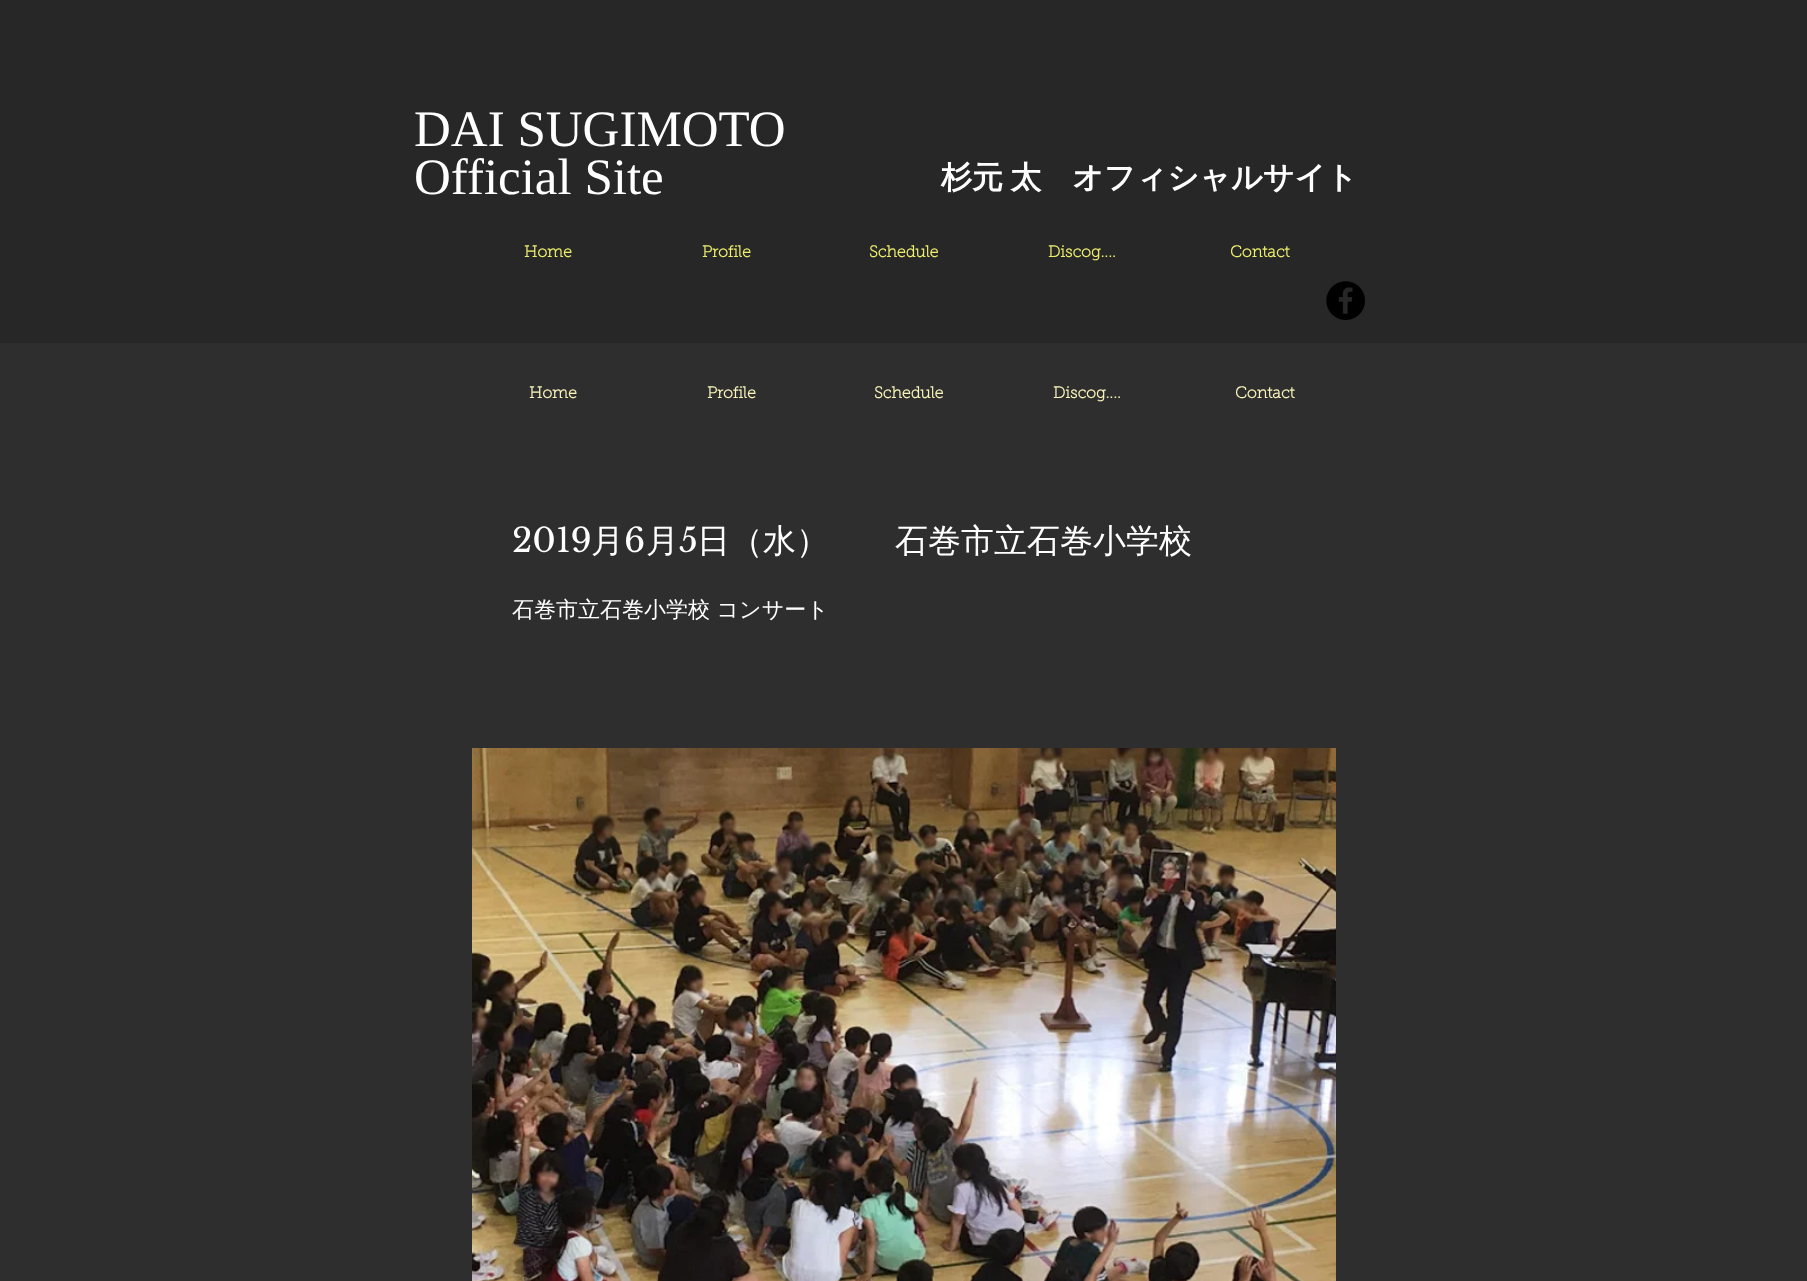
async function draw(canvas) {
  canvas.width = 1807;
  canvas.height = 1281;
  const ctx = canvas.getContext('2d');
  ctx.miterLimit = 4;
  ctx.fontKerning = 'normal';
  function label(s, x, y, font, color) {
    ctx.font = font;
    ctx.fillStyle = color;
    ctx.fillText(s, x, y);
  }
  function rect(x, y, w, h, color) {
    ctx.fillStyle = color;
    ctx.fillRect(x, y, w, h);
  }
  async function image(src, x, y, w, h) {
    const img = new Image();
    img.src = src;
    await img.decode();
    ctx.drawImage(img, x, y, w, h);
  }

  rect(0, 0, 1807, 1281, '#2f2e2e');
  rect(0, 0, 1807, 343, '#282727');
  label('DAI SUGIMOTO', 414, 146, '51px Liberation Serif', '#fff');
  label('Official Site', 414, 194, '51px Liberation Serif', '#fff');
  ctx.wordSpacing = '-2px';
  label('杉元 太　オフィシャルサイト', 941, 188, 'bold 31px WenQuanYi Zen Hei', '#fff');
  ctx.wordSpacing = '0px';
  label('Home', 524, 257, 'bold 16px "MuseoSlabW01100"', '#edee6e');
  label('Profile', 702, 257, 'bold 16px "MuseoSlabW01100"', '#edee6e');
  label('Schedule', 869, 257, 'bold 16px "MuseoSlabW01100"', '#edee6e');
  label('Discog....', 1048, 257, 'bold 16px "MuseoSlabW01100"', '#edee6e');
  label('Contact', 1230, 257, 'bold 16px "MuseoSlabW01100"', '#edee6e');
  await image('assets/img1.png', 1326, 281, 39, 39);
  label('Home', 529, 398, 'bold 16px "MuseoSlabW01100"', '#f9f5ba');
  label('Profile', 707, 398, 'bold 16px "MuseoSlabW01100"', '#f9f5ba');
  label('Schedule', 874, 398, 'bold 16px "MuseoSlabW01100"', '#f9f5ba');
  label('Discog....', 1053, 398, 'bold 16px "MuseoSlabW01100"', '#f9f5ba');
  label('Contact', 1235, 398, 'bold 16px "MuseoSlabW01100"', '#f9f5ba');
  label('2019', 512, 552, '33px Libre Baskerville', '#fff');
  label('月', 591, 552, '500 33px WenQuanYi Zen Hei', '#fff');
  label('6', 624, 552, '33px Libre Baskerville', '#fff');
  label('月', 646, 552, '500 33px WenQuanYi Zen Hei', '#fff');
  label('5', 679, 552, '33px Libre Baskerville', '#fff');
  label('日（水）　　石巻市立石巻小学校', 697, 552, '500 33px WenQuanYi Zen Hei', '#fff');
  label('石巻市立石巻小学校 コンサート', 512, 617, '500 22px WenQuanYi Zen Hei', '#fff');
  await image('assets/img2.png', 472, 748, 864, 533);
}

draw(document.querySelector('canvas'));
